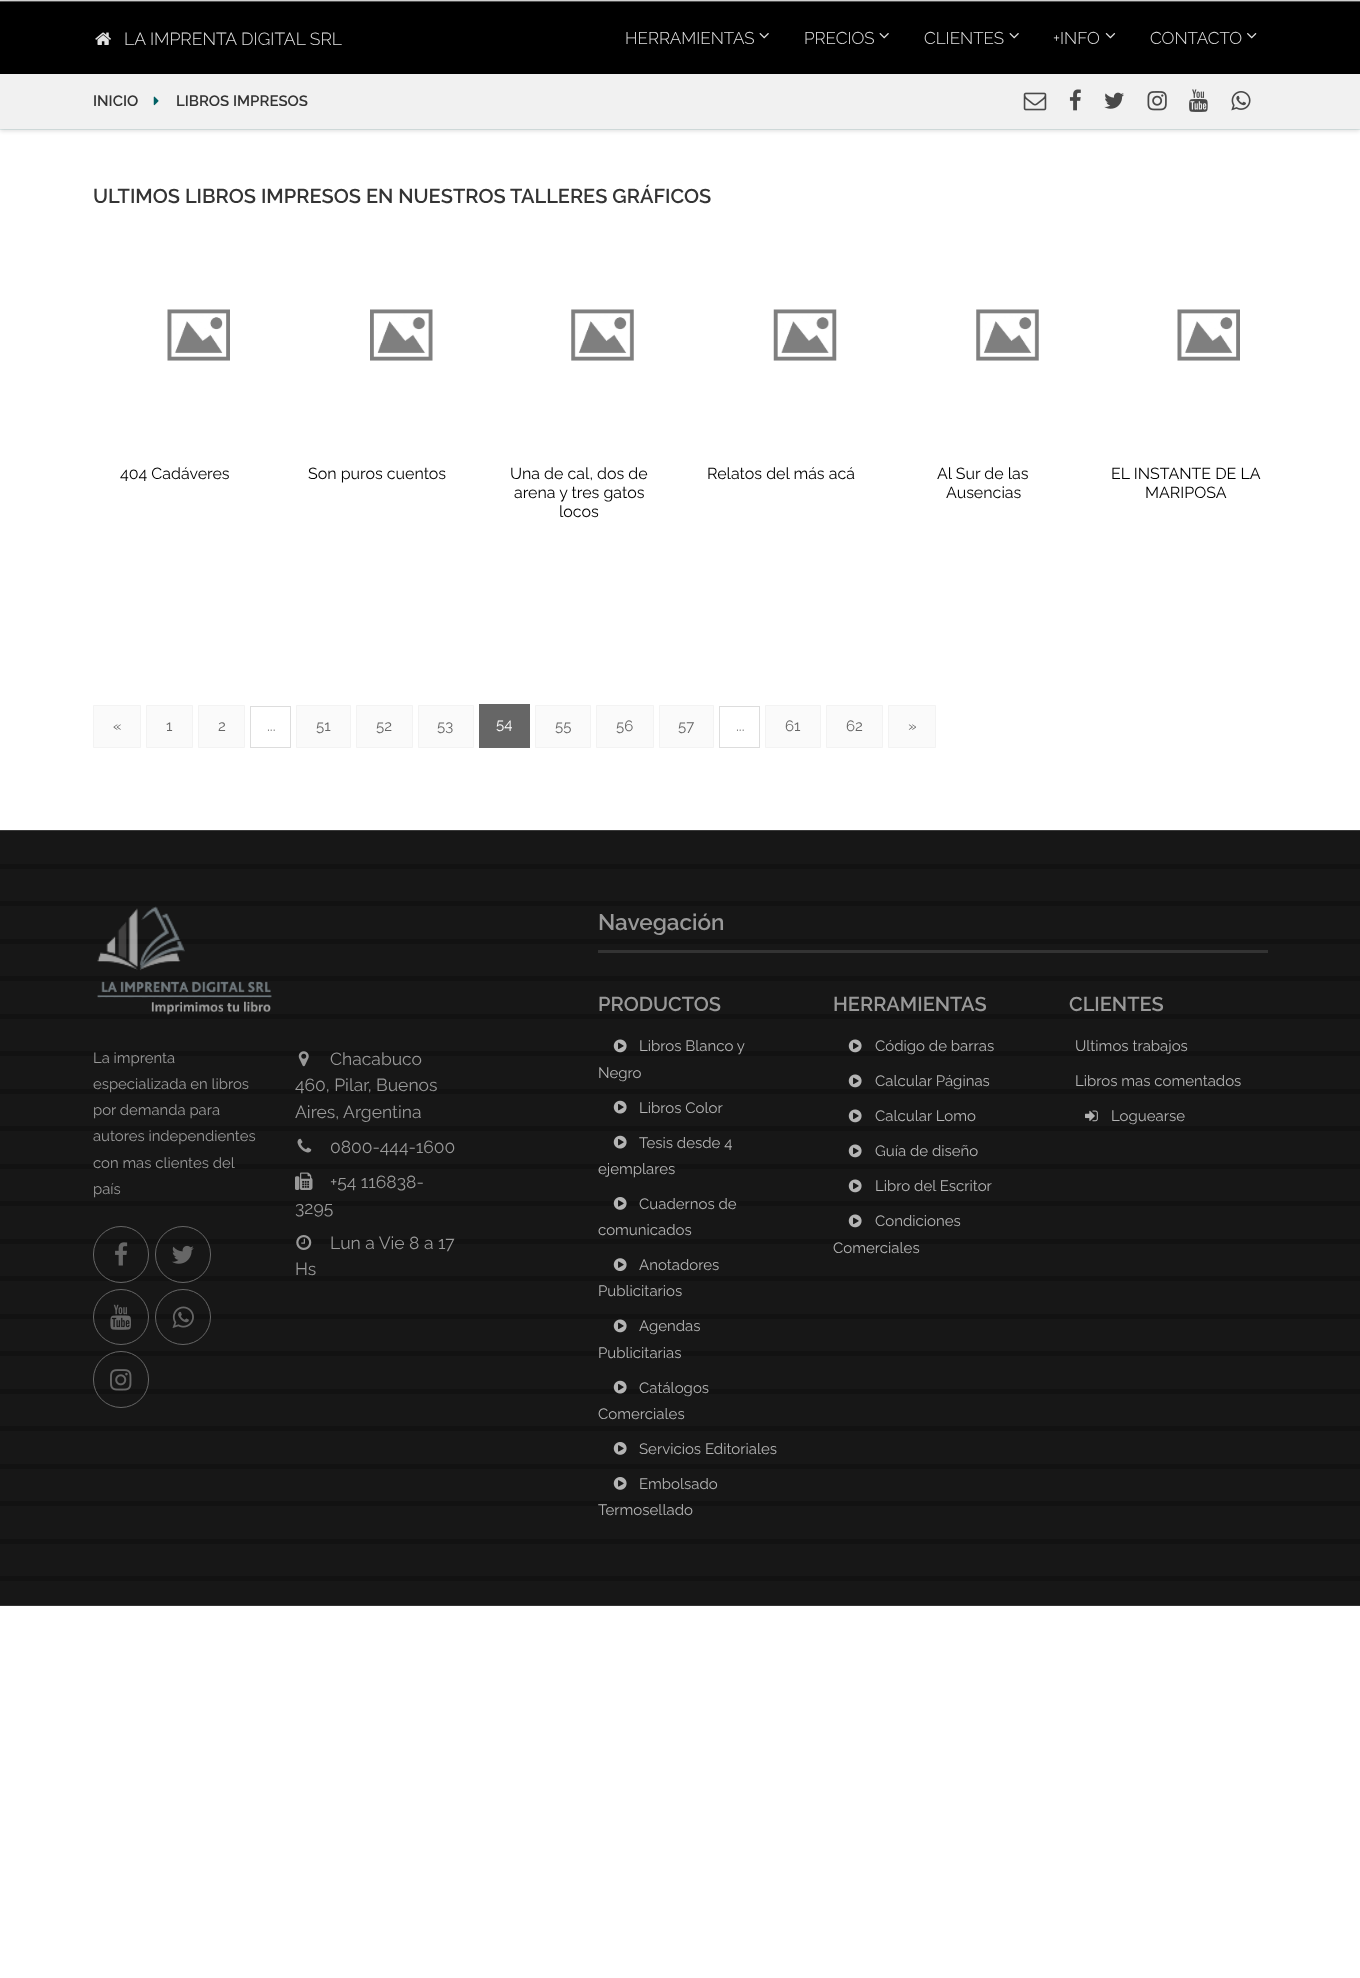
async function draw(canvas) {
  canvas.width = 1360;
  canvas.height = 1978;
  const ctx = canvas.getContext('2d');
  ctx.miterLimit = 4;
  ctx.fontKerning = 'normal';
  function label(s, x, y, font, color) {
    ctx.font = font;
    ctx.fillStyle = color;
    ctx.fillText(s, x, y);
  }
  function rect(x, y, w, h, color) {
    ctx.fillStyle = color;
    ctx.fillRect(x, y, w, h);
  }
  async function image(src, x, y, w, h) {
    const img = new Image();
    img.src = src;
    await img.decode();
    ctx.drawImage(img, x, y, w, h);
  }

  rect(0, 0, 1360, 1978, '#fff');
  rect(0, 0, 1360, 1, '#dadada');
  ctx.fillStyle = '#00000033';
  ctx.filter = 'blur(7.5px)';
  ctx.beginPath();
  ctx.rect(5, 6, 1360, 73);
  ctx.fill();
  ctx.filter = 'none';
  rect(0, 2, 1360, 72, '#000');
  rect(0, 1, 1360, 1, '#515151');
  await image('assets/img1.png', 95, 32, 16, 13);
  label('LA IMPRENTA DIGITAL SRL', 124, 45, '300 17.5px Raleway', '#e1e1e1');
  label('HERRAMIENTAS', 625, 44, '300 17px Raleway', '#e1e1e1');
  await image('assets/img2.png', 759, 33, 10, 6);
  label('PRECIOS', 804, 44, '300 17px Raleway', '#e1e1e1');
  await image('assets/img2.png', 879, 33, 10, 6);
  label('CLIENTES', 924, 44, '300 17px Raleway', '#e1e1e1');
  await image('assets/img2.png', 1009, 33, 10, 6);
  label('+INFO', 1053, 44, '300 17px Raleway', '#e1e1e1');
  await image('assets/img3.png', 1105, 33, 11, 6);
  label('CONTACTO', 1150, 44, '300 17px Raleway', '#e1e1e1');
  await image('assets/img4.png', 1247, 33, 10, 6);
  ctx.fillStyle = '#00000021';
  ctx.filter = 'blur(2px)';
  ctx.beginPath();
  ctx.rect(0, 76, 1360, 55);
  ctx.fill();
  ctx.filter = 'none';
  rect(0, 74, 1360, 55, '#f1f1f1');
  label('INICIO', 93, 106, '600 15px Raleway', '#343434');
  await image('assets/img5.png', 153, 96, 6, 10);
  label('LIBROS IMPRESOS', 176, 106, '600 15px Raleway', '#343434');
  await image('assets/img6.png', 1023, 92, 24, 19);
  await image('assets/img7.png', 1069, 89, 12, 22);
  await image('assets/img8.png', 1104, 92, 20, 17);
  await image('assets/img9.png', 1147, 91, 20, 20);
  await image('assets/img10.png', 1189, 89, 19, 23);
  await image('assets/img11.png', 1231, 91, 20, 20);
  rect(0, 129, 1360, 1, '#0064641a');
  label('ULTIMOS LIBROS IMPRESOS EN NUESTROS TALLERES GRÁFICOS', 93, 203, '600 20px Raleway', '#343434');
  await image('assets/img12.png', 167, 309, 63, 52);
  label('404 Cadáveres', 120, 479, '100 16px Raleway', '#000');
  await image('assets/img13.png', 370, 309, 63, 52);
  label('Son puros cuentos', 308, 479, '100 16px Raleway', '#000');
  await image('assets/img14.png', 571, 309, 63, 52);
  label('Una de cal, dos de', 510, 479, '100 16px Raleway', '#000');
  label('arena y tres gatos', 514, 498, '100 16px Raleway', '#000');
  label('locos', 559, 517, '100 16px Raleway', '#000');
  await image('assets/img15.png', 773, 309, 64, 52);
  label('Relatos del más acá', 707, 479, '100 16px Raleway', '#000');
  await image('assets/img14.png', 976, 309, 63, 52);
  label('Al Sur de las', 937, 479, '100 16px Raleway', '#000');
  label('Ausencias', 946, 498, '100 16px Raleway', '#000');
  await image('assets/img12.png', 1177, 309, 63, 52);
  label('EL INSTANTE DE LA', 1111, 479, '100 16px Raleway', '#000');
  label('MARIPOSA', 1145, 498, '100 16px Raleway', '#000');
  ctx.fillStyle = '#fafafa';
  ctx.beginPath();
  ctx.rect(93.5, 705.5, 47, 42);
  ctx.fill();
  ctx.strokeStyle = '#f3f3f3';
  ctx.stroke();
  label('«', 113, 731, '100 15px Raleway', '#666');
  ctx.fillStyle = '#fafafa';
  ctx.beginPath();
  ctx.rect(146.5, 705.5, 46, 42);
  ctx.fill();
  ctx.stroke();
  label('1', 166, 731, '100 15px Raleway', '#666');
  ctx.fillStyle = '#fafafa';
  ctx.beginPath();
  ctx.rect(198.5, 705.5, 46, 42);
  ctx.fill();
  ctx.stroke();
  label('2', 218, 731, '100 15px Raleway', '#666');
  ctx.strokeStyle = '#ddd';
  ctx.strokeRect(250.5, 706.5, 40, 41);
  label('...', 267, 731, '100 15px Raleway', '#777');
  ctx.fillStyle = '#fafafa';
  ctx.beginPath();
  ctx.rect(296.5, 705.5, 54, 42);
  ctx.fill();
  ctx.strokeStyle = '#f3f3f3';
  ctx.stroke();
  label('51', 316, 731, '100 15px Raleway', '#666');
  ctx.fillStyle = '#fafafa';
  ctx.beginPath();
  ctx.rect(356.5, 705.5, 56, 42);
  ctx.fill();
  ctx.stroke();
  label('52', 376, 731, '100 15px Raleway', '#666');
  ctx.fillStyle = '#fafafa';
  ctx.beginPath();
  ctx.rect(418.5, 705.5, 55, 42);
  ctx.fill();
  ctx.stroke();
  label('53', 437, 731, '100 15px Raleway', '#666');
  rect(479, 704, 51, 44, '#666');
  label('54', 496, 729, '100 15px Raleway', '#fff');
  ctx.fillStyle = '#fafafa';
  ctx.beginPath();
  ctx.rect(535.5, 705.5, 55, 42);
  ctx.fill();
  ctx.stroke();
  label('55', 555, 731, '100 15px Raleway', '#666');
  ctx.fillStyle = '#fafafa';
  ctx.beginPath();
  ctx.rect(596.5, 705.5, 57, 42);
  ctx.fill();
  ctx.stroke();
  label('56', 616, 731, '100 15px Raleway', '#666');
  ctx.fillStyle = '#fafafa';
  ctx.beginPath();
  ctx.rect(659.5, 705.5, 54, 42);
  ctx.fill();
  ctx.stroke();
  label('57', 678, 731, '100 15px Raleway', '#666');
  ctx.strokeStyle = '#ddd';
  ctx.strokeRect(719.5, 706.5, 40, 41);
  label('...', 736, 731, '100 15px Raleway', '#777');
  ctx.fillStyle = '#fafafa';
  ctx.beginPath();
  ctx.rect(765.5, 705.5, 55, 42);
  ctx.fill();
  ctx.strokeStyle = '#f3f3f3';
  ctx.stroke();
  label('61', 785, 731, '100 15px Raleway', '#666');
  ctx.fillStyle = '#fafafa';
  ctx.beginPath();
  ctx.rect(826.5, 705.5, 56, 42);
  ctx.fill();
  ctx.stroke();
  label('62', 846, 731, '100 15px Raleway', '#666');
  ctx.fillStyle = '#fafafa';
  ctx.beginPath();
  ctx.rect(888.5, 705.5, 47, 42);
  ctx.fill();
  ctx.stroke();
  label('»', 908, 731, '100 15px Raleway', '#666');
  rect(0, 864, 1360, 717, '#353535');
  await image('assets/img16.png', 0, 831, 1360, 774);
  rect(0, 830, 1360, 1, '#3a3a3a');
  rect(0, 1605, 1360, 1, '#333');
  await image('assets/img17.png', 97, 906, 88, 65);
  await image('assets/img18.png', 97, 981, 175, 34);
  label('La imprenta', 93, 1063, '100 14.9px Raleway', '#999');
  label('especializada en libros', 93, 1089, '100 14.9px Raleway', '#999');
  label('por demanda para', 93, 1115, '100 14.9px Raleway', '#999');
  label('autores independientes', 93, 1141, '100 14.9px Raleway', '#999');
  label('con mas clientes del', 93, 1168, '100 14.9px Raleway', '#999');
  label('país', 93, 1194, '100 14.9px Raleway', '#999');
  ctx.beginPath();
  ctx.roundRect(93.5, 1226.5, 55, 56, 27.5);
  ctx.strokeStyle = '#666';
  ctx.stroke();
  await image('assets/img19.png', 115, 1242, 13, 24);
  ctx.beginPath();
  ctx.roundRect(155.5, 1226.5, 55, 56, 27.5);
  ctx.stroke();
  await image('assets/img20.png', 172, 1245, 22, 19);
  ctx.beginPath();
  ctx.arc(121, 1317, 27.5, 0, 2 * Math.PI);
  ctx.stroke();
  await image('assets/img21.png', 110, 1304, 21, 26);
  ctx.beginPath();
  ctx.arc(183, 1317, 27.5, 0, 2 * Math.PI);
  ctx.stroke();
  await image('assets/img22.png', 172, 1306, 22, 22);
  ctx.beginPath();
  ctx.roundRect(93.5, 1351.5, 55, 56, 27.5);
  ctx.stroke();
  await image('assets/img23.png', 110, 1369, 22, 22);
  await image('assets/img24.png', 298, 1051, 11, 16);
  label('Chacabuco', 330, 1065, '100 17.5px Raleway', '#999');
  label('460, Pilar, Buenos', 295, 1091, '100 17.5px Raleway', '#999');
  label('Aires, Argentina', 295, 1118, '100 17.5px Raleway', '#999');
  await image('assets/img25.png', 297, 1138, 15, 15);
  label('0800-444-1600', 330, 1153, '100 17.5px Raleway', '#999');
  await image('assets/img26.png', 295, 1172, 18, 18);
  label('+54 116838-', 330, 1188, '100 17.5px Raleway', '#999');
  label('3295', 295, 1214, '100 17.5px Raleway', '#999');
  await image('assets/img27.png', 296, 1235, 16, 15);
  label('Lun a Vie 8 a 17', 330, 1249, '100 17.5px Raleway', '#999');
  label('Hs', 295, 1275, '100 17.5px Raleway', '#999');
  label('Navegación', 598, 930, '600 22.5px Raleway', '#999');
  rect(598, 950, 670, 3, '#333');
  label('PRODUCTOS', 598, 1011, '600 20px Raleway', '#999');
  await image('assets/img28.png', 613, 1039, 14, 14);
  label('Libros Blanco y', 639, 1051, '100 15px Raleway', '#b4b4b4');
  label('Negro', 598, 1078, '100 15px Raleway', '#b4b4b4');
  await image('assets/img29.png', 613, 1100, 14, 14);
  label('Libros Color', 639, 1113, '100 15px Raleway', '#b4b4b4');
  await image('assets/img29.png', 613, 1135, 14, 14);
  label('Tesis desde 4', 639, 1148, '100 15px Raleway', '#b4b4b4');
  label('ejemplares', 598, 1174, '100 15px Raleway', '#b4b4b4');
  await image('assets/img30.png', 613, 1197, 14, 13);
  label('Cuadernos de', 639, 1209, '100 15px Raleway', '#b4b4b4');
  label('comunicados', 598, 1235, '100 15px Raleway', '#b4b4b4');
  await image('assets/img31.png', 613, 1258, 14, 14);
  label('Anotadores', 639, 1270, '100 15px Raleway', '#b4b4b4');
  label('Publicitarios', 598, 1296, '100 15px Raleway', '#b4b4b4');
  await image('assets/img32.png', 613, 1319, 14, 14);
  label('Agendas', 639, 1331, '100 15px Raleway', '#b4b4b4');
  label('Publicitarias', 598, 1358, '100 15px Raleway', '#b4b4b4');
  await image('assets/img33.png', 613, 1380, 14, 14);
  label('Catálogos', 639, 1393, '100 15px Raleway', '#b4b4b4');
  label('Comerciales', 598, 1419, '100 15px Raleway', '#b4b4b4');
  await image('assets/img34.png', 613, 1442, 14, 13);
  label('Servicios Editoriales', 639, 1454, '100 15px Raleway', '#b4b4b4');
  await image('assets/img34.png', 613, 1477, 14, 13);
  label('Embolsado', 639, 1489, '100 15px Raleway', '#b4b4b4');
  label('Termosellado', 598, 1515, '100 15px Raleway', '#b4b4b4');
  label('HERRAMIENTAS', 833, 1011, '600 20px Raleway', '#999');
  await image('assets/img28.png', 848, 1039, 14, 14);
  label('Código de barras', 875, 1051, '100 15px Raleway', '#b4b4b4');
  await image('assets/img32.png', 848, 1074, 14, 14);
  label('Calcular Páginas', 875, 1086, '100 15px Raleway', '#b4b4b4');
  await image('assets/img32.png', 848, 1109, 14, 14);
  label('Calcular Lomo', 875, 1121, '100 15px Raleway', '#b4b4b4');
  await image('assets/img32.png', 848, 1144, 14, 14);
  label('Guía de diseño', 875, 1156, '100 15px Raleway', '#b4b4b4');
  await image('assets/img32.png', 848, 1179, 14, 14);
  label('Libro del Escritor', 875, 1191, '100 15px Raleway', '#b4b4b4');
  await image('assets/img32.png', 848, 1214, 14, 14);
  label('Condiciones', 875, 1226, '100 15px Raleway', '#b4b4b4');
  label('Comerciales', 833, 1253, '100 15px Raleway', '#b4b4b4');
  label('CLIENTES', 1069, 1011, '600 20px Raleway', '#999');
  label('Ultimos trabajos', 1075, 1051, '100 15px Raleway', '#b4b4b4');
  label('Libros mas comentados', 1075, 1086, '100 15px Raleway', '#b4b4b4');
  await image('assets/img35.png', 1085, 1110, 13, 12);
  label('Loguearse', 1111, 1121, '100 15px Raleway', '#b4b4b4');
}

draw(document.querySelector('canvas'));
